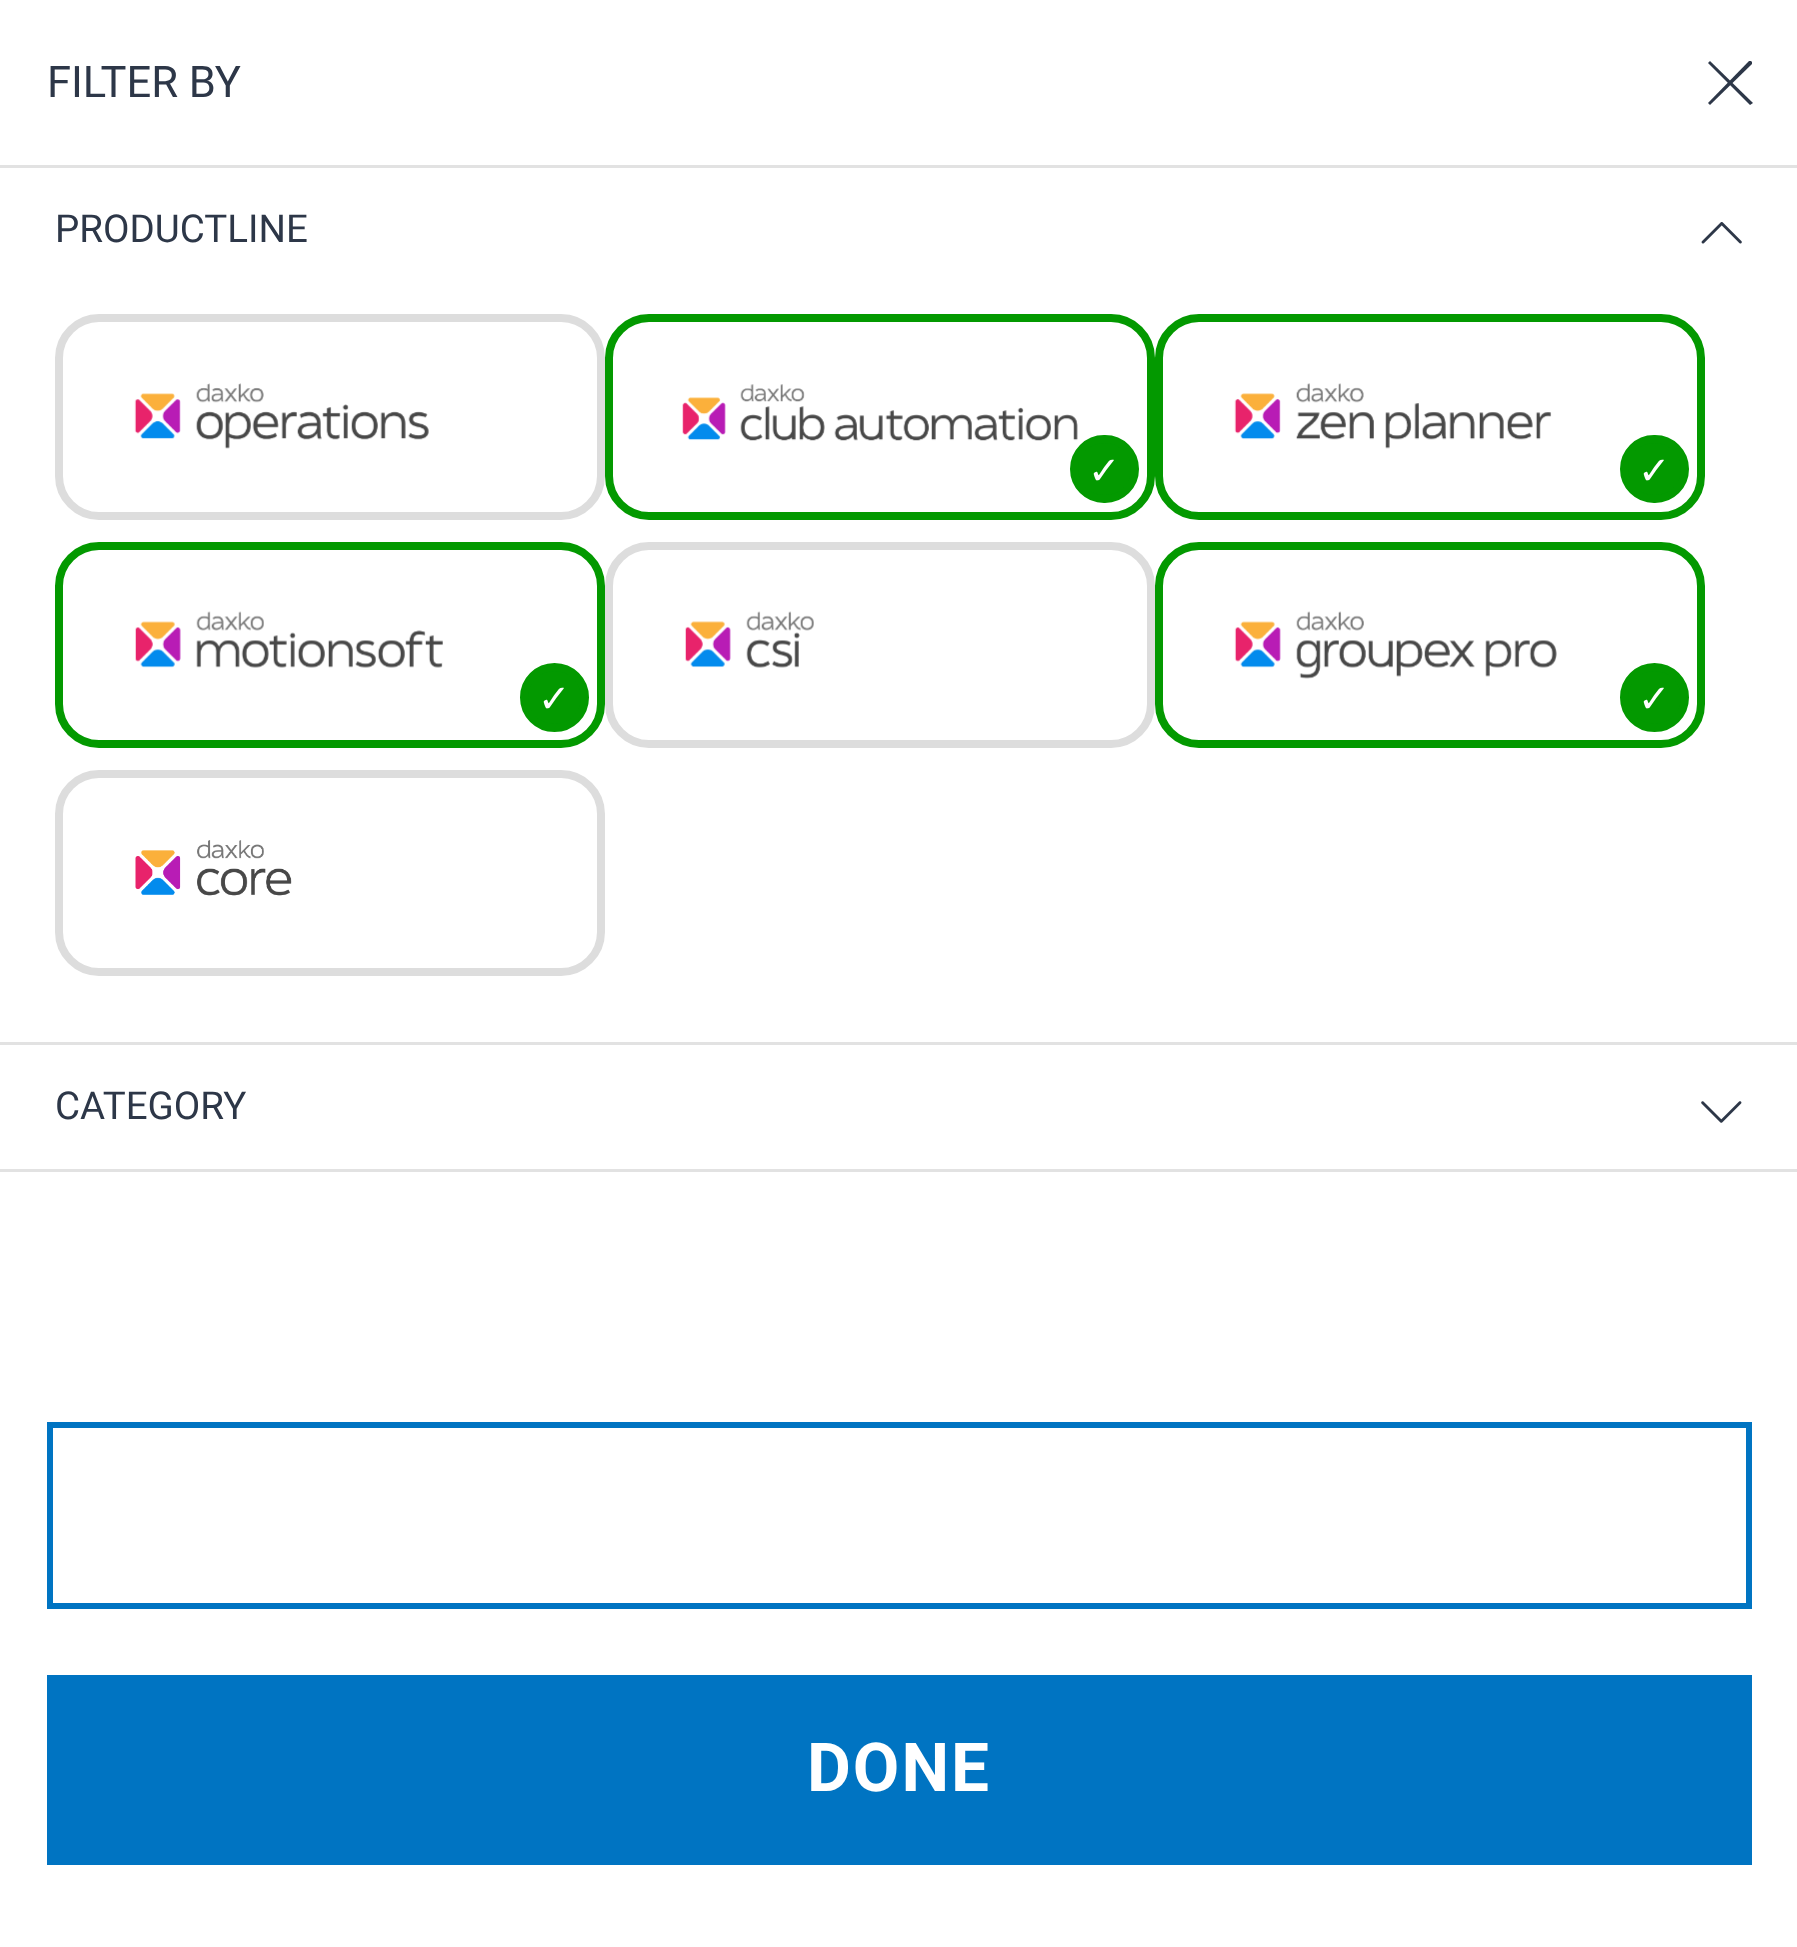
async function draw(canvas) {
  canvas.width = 1797;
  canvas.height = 1947;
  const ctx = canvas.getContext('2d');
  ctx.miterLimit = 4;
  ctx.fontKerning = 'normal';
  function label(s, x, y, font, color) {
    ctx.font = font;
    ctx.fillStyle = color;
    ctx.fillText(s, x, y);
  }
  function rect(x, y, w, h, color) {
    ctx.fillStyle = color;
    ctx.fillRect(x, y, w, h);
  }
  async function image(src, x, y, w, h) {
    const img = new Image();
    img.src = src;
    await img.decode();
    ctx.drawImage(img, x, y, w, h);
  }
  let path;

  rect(0, 0, 1797, 1947, '#fff');
  label('FILTER BY', 47, 97, '43.5px Roboto', '#2d3748');
  path = new Path2D('M1710 61L1753 103L1750 105L1708 63Z');
  ctx.fill(path);
  ctx.save();
  ctx.beginPath();
  ctx.rect(1708, 61, 44, 44);
  ctx.clip();
  path = new Path2D('M1753 63L1710 105L1708 103L1750 60Z');
  ctx.fill(path);
  ctx.restore();
  rect(0, 165, 1797, 3, '#e2e2e2');
  label('PRODUCTLINE', 55, 242, '38.5px Roboto', '#2d3748');
  await image('assets/img1.png', 1701, 222, 41, 22);
  ctx.beginPath();
  ctx.roundRect(59, 318, 542, 198, 40);
  ctx.strokeStyle = '#ddd';
  ctx.lineWidth = 8;
  ctx.stroke();
  await image('assets/img2.png', 134, 383, 295, 66);
  ctx.beginPath();
  ctx.roundRect(609, 318, 542, 198, 40);
  ctx.strokeStyle = '#039900';
  ctx.stroke();
  await image('assets/img3.png', 682, 384, 396, 57);
  ctx.fillStyle = '#039900';
  ctx.beginPath();
  ctx.roundRect(1074, 439, 61, 60, 30);
  ctx.fill();
  ctx.stroke();
  label('✓', 1088, 484, '38.5px DejaVu Sans', '#fff');
  ctx.beginPath();
  ctx.roundRect(1159, 318, 542, 198, 40);
  ctx.stroke();
  await image('assets/img4.png', 1234, 383, 318, 66);
  ctx.fillStyle = '#039900';
  ctx.beginPath();
  ctx.roundRect(1624, 439, 61, 60, 30);
  ctx.fill();
  ctx.stroke();
  label('✓', 1638, 484, '38.5px DejaVu Sans', '#fff');
  ctx.beginPath();
  ctx.roundRect(59, 546, 542, 198, 40);
  ctx.stroke();
  await image('assets/img5.png', 135, 611, 308, 57);
  ctx.fillStyle = '#039900';
  ctx.beginPath();
  ctx.arc(554.5, 697.5, 30.5, 0, 2 * Math.PI);
  ctx.fill();
  ctx.stroke();
  label('✓', 538, 712, '38.5px DejaVu Sans', '#fff');
  ctx.beginPath();
  ctx.roundRect(609, 546, 542, 198, 40);
  ctx.strokeStyle = '#ddd';
  ctx.stroke();
  await image('assets/img6.png', 685, 611, 129, 57);
  ctx.beginPath();
  ctx.roundRect(1159, 546, 542, 198, 40);
  ctx.strokeStyle = '#039900';
  ctx.stroke();
  await image('assets/img7.png', 1234, 611, 323, 68);
  ctx.fillStyle = '#039900';
  ctx.beginPath();
  ctx.arc(1654.5, 697.5, 30.5, 0, 2 * Math.PI);
  ctx.fill();
  ctx.stroke();
  label('✓', 1638, 712, '38.5px DejaVu Sans', '#fff');
  ctx.beginPath();
  ctx.roundRect(59, 774, 542, 198, 40);
  ctx.strokeStyle = '#ddd';
  ctx.stroke();
  await image('assets/img8.png', 135, 840, 157, 56);
  rect(0, 1042, 1797, 3, '#e2e2e2');
  rect(0, 1169, 1797, 3, '#e2e2e2');
  label('CATEGORY', 55, 1119, '38.5px Roboto', '#2d3748');
  await image('assets/img9.png', 1701, 1101, 41, 22);
  ctx.strokeStyle = '#0074c2';
  ctx.lineWidth = 6;
  ctx.strokeRect(50, 1425, 1699, 181);
  rect(47, 1675, 1705, 190, '#0074c2');
  ctx.letterSpacing = '2px';
  label('DONE', 807, 1791, 'bold 67.5px Roboto', '#fff');
}

draw(document.querySelector('canvas'));
